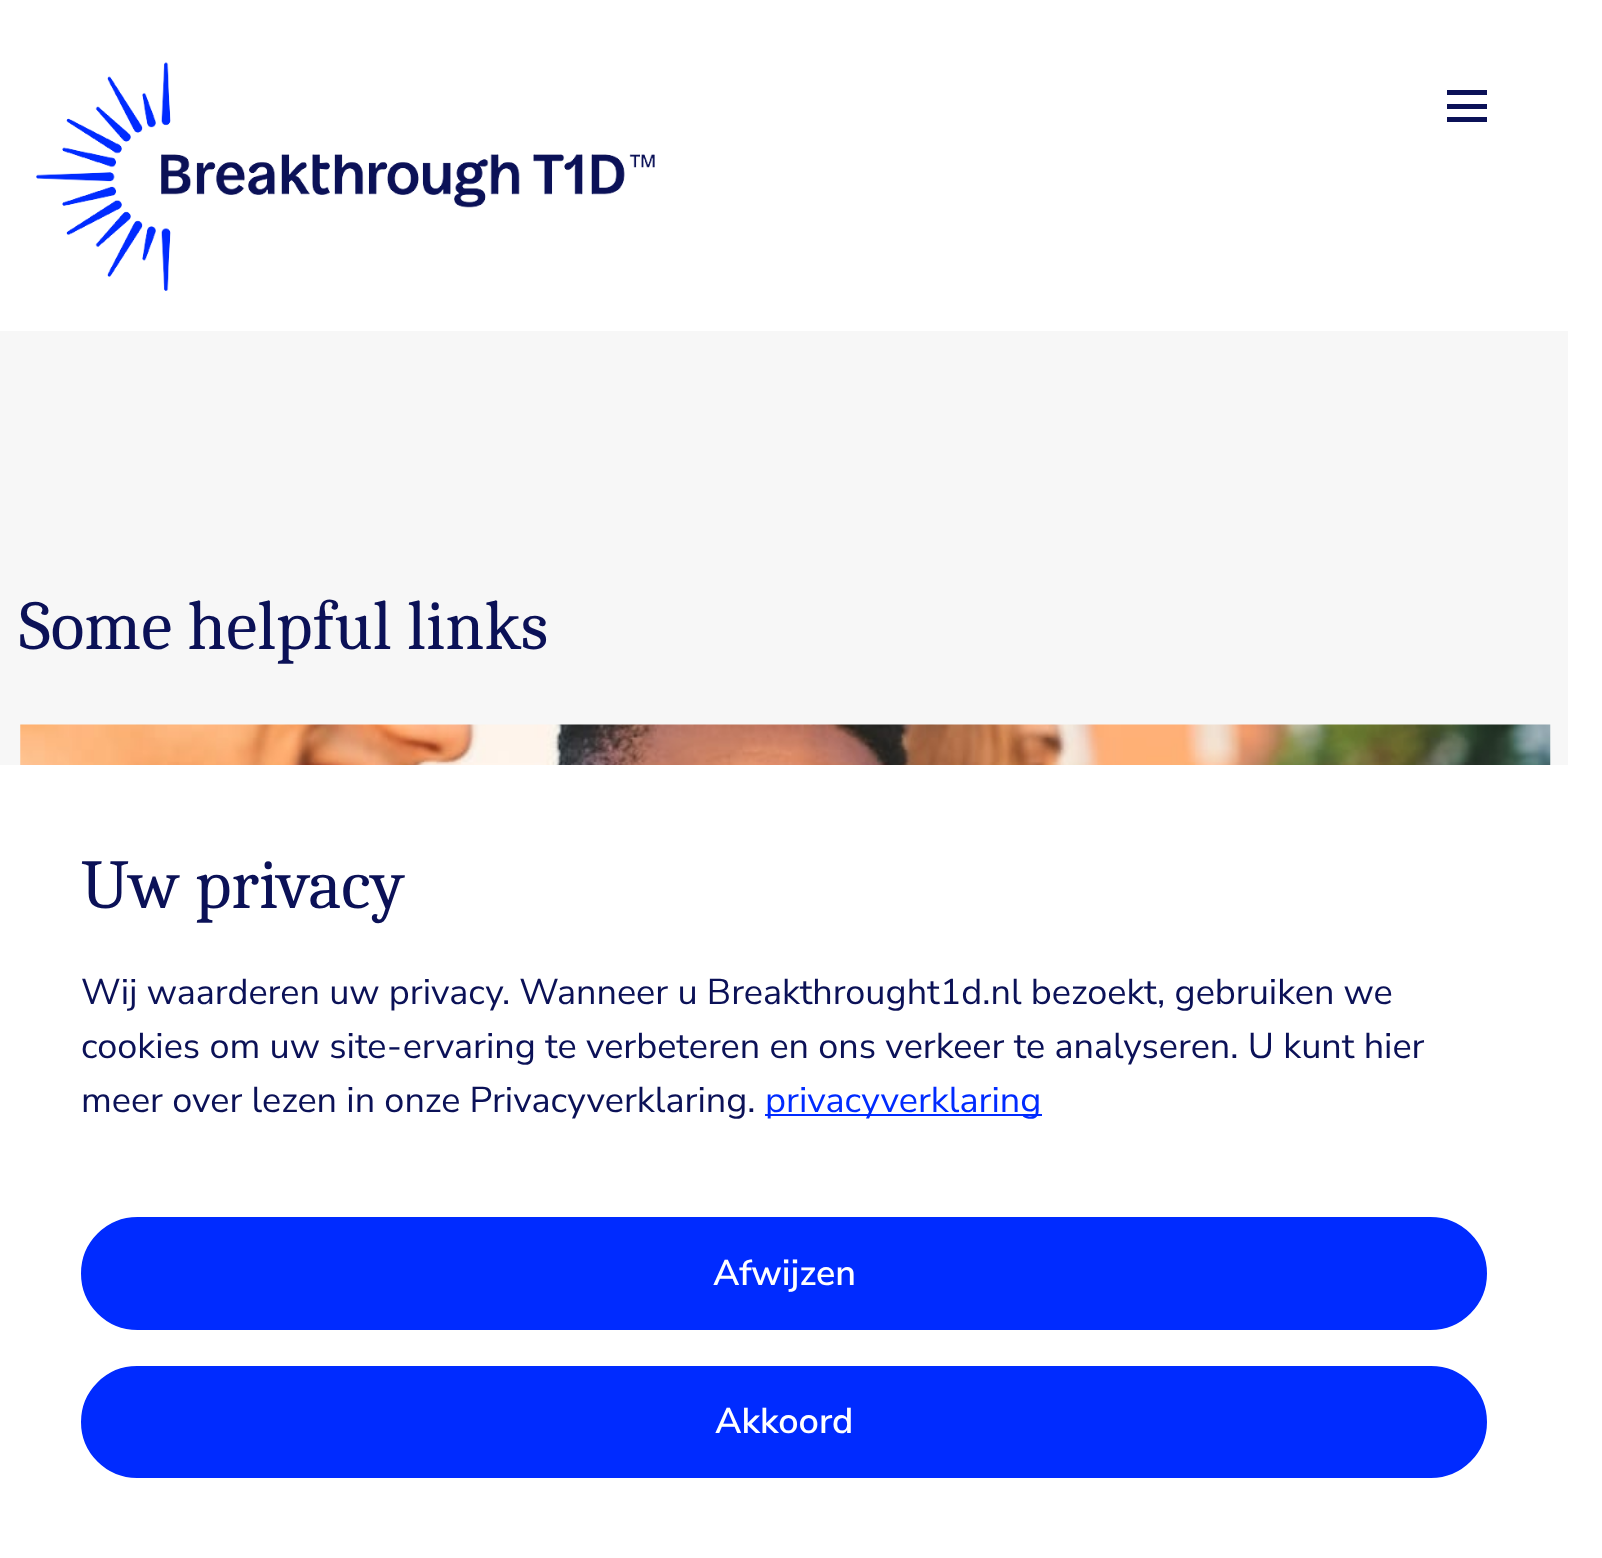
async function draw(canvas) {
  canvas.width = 1602;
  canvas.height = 1558;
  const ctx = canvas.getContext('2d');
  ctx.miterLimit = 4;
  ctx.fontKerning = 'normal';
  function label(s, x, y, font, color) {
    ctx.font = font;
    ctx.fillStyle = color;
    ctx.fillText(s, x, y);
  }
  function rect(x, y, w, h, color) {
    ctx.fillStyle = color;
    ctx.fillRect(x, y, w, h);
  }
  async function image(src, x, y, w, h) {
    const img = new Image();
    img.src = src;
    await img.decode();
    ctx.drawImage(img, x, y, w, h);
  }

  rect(0, 0, 1602, 1558, '#fff');
  await image('assets/img1.png', 36, 62, 619, 229);
  rect(1447, 90, 40, 5, '#0b1157');
  rect(1447, 104, 40, 5, '#0b1157');
  rect(1447, 117, 40, 5, '#0b1157');
  rect(0, 331, 1568, 434, '#f7f7f7');
  label('Some helpful links', 19, 649, '70px Caladea', '#0b1157');
  await image('assets/img2.png', 20, 724, 1531, 41);
  label('Uw privacy', 81, 908, '70px Caladea', '#0b1157');
  label('Wij waarderen uw privacy. Wanneer u Breakthrought1d.nl bezoekt, gebruiken we', 81, 1004, '200 36px Nunito Sans', '#0b1157');
  label('cookies om uw site-ervaring te verbeteren en ons verkeer te analyseren. U kunt hier', 81, 1058, '200 36px Nunito Sans', '#0b1157');
  label('meer over lezen in onze Privacyverklaring.', 81, 1112, '200 36px Nunito Sans', '#0b1157');
  rect(765, 1114, 277, 2, '#002bff');
  label('privacyverklaring', 765, 1112, '200 36px Nunito Sans', '#002bff');
  ctx.beginPath();
  ctx.roundRect(82, 1218, 1404, 111, 55.5);
  ctx.fill();
  ctx.strokeStyle = '#002bff';
  ctx.lineWidth = 2;
  ctx.stroke();
  label('Afwijzen', 713, 1285, '200 36px "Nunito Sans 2"', '#fff');
  ctx.fillStyle = '#002bff';
  ctx.beginPath();
  ctx.roundRect(82, 1367, 1404, 110, 55);
  ctx.fill();
  ctx.stroke();
  label('Akkoord', 715, 1433, '200 36px "Nunito Sans 2"', '#fff');
}

draw(document.querySelector('canvas'));
